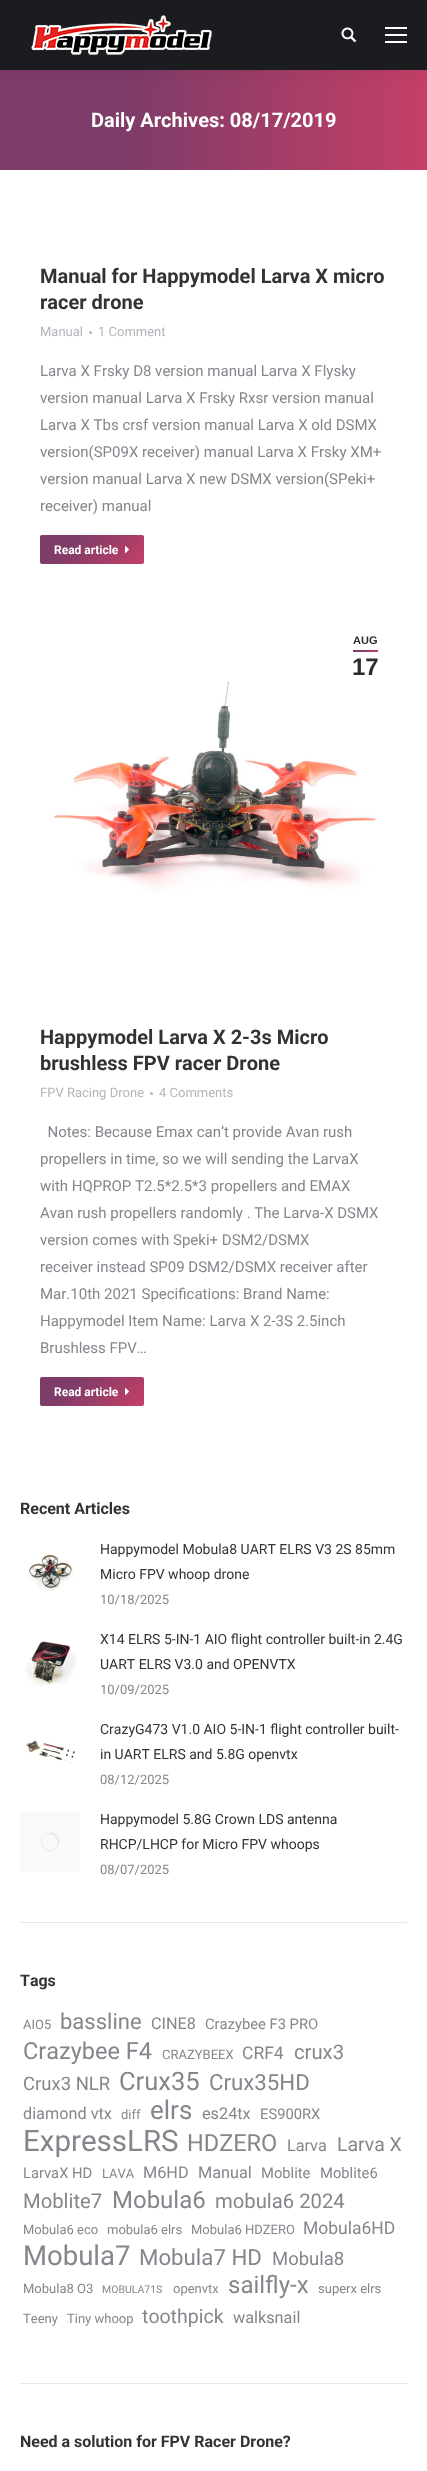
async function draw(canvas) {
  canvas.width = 427;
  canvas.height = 2471;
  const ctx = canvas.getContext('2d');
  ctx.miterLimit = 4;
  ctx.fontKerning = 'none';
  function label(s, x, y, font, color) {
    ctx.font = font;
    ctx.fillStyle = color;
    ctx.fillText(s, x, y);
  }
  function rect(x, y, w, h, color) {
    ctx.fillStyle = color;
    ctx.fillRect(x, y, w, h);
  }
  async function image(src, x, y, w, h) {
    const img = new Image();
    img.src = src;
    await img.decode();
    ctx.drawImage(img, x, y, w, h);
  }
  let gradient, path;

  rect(0, 0, 427, 2471, '#fff');
  gradient = ctx.createLinearGradient(0, 120, 427, 120);
  gradient.addColorStop(0.3, '#7e3c68');
  gradient.addColorStop(1, '#c53f67');
  ctx.fillStyle = gradient;
  ctx.fillRect(0, 70, 427, 100);
  ctx.fillStyle = '#00000012';
  ctx.filter = 'blur(7.5px)';
  ctx.beginPath();
  ctx.rect(-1, -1, 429, 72);
  ctx.fill();
  ctx.filter = 'none';
  rect(0, 0, 427, 70, '#1a1c20');
  await image('assets/img1.png', 31, 15, 181, 40);
  await image('assets/img2.png', 341, 27, 16, 16);
  rect(385, 34, 22, 2, '#fff');
  rect(385, 27, 22, 2, '#fff');
  rect(385, 41, 22, 2, '#fff');
  label('Daily Archives: 08/17/2019', 91, 127, 'bold 20px Roboto', '#fff');
  label('Manual for Happymodel Larva X micro', 40, 283, 'bold 20px Roboto', '#333');
  label('racer drone', 40, 309, 'bold 20px Roboto', '#333');
  label('Manual', 40, 336, '13px Roboto', '#b4b5bb');
  ctx.beginPath();
  ctx.arc(90.5, 332.5, 1.5, 0, 2 * Math.PI);
  ctx.fill();
  label('1 Comment', 98, 336, '13px Roboto', '#b4b5bb');
  label('Larva X Frsky D8 version manual Larva X Flysky', 40, 376, '15px Roboto', '#85868c');
  label('version manual Larva X Frsky Rxsr version manual', 40, 403, '15px Roboto', '#85868c');
  label('Larva X Tbs crsf version manual Larva X old DSMX', 40, 430, '15px Roboto', '#85868c');
  label('version(SP09X receiver) manual Larva X Frsky XM+', 40, 457, '15px Roboto', '#85868c');
  label('version manual Larva X new DSMX version(SPeki+', 40, 484, '15px Roboto', '#85868c');
  label('receiver) manual', 40, 511, '15px Roboto', '#85868c');
  gradient = ctx.createLinearGradient(59, 516, 125, 583);
  gradient.addColorStop(0.3, '#7e3c68');
  gradient.addColorStop(1, '#c53f67');
  ctx.fillStyle = gradient;
  ctx.beginPath();
  ctx.roundRect(40, 535, 104, 29, 2);
  ctx.fill();
  label('Read article', 54, 554, 'bold 12px Roboto', '#fff');
  await image('assets/img3.png', 125, 546, 4, 7);
  label('AUG', 353, 644, 'bold 11px Liberation Sans', '#2d2d2d');
  gradient = ctx.createLinearGradient(353, 651, 378, 651);
  gradient.addColorStop(0.3, '#7e3c68');
  gradient.addColorStop(1, '#c53f67');
  ctx.fillStyle = gradient;
  ctx.fillRect(353, 650, 25, 2);
  label('17', 352, 675, 'bold 24px Liberation Sans', '#2d2d2d');
  await image('assets/img4.png', 53, 681, 324, 214);
  label('Happymodel Larva X 2-3s Micro', 40, 1044, 'bold 20px Roboto', '#333');
  label('brushless FPV racer Drone', 40, 1070, 'bold 20px Roboto', '#333');
  label('FPV Racing Drone', 40, 1097, '13px Roboto', '#b4b5bb');
  ctx.beginPath();
  ctx.arc(151.5, 1093.5, 1.5, 0, 2 * Math.PI);
  ctx.fill();
  label('4 Comments', 159, 1097, '13px Roboto', '#b4b5bb');
  label('  Notes: Because Emax can’t provide Avan rush', 40, 1137, '15px Roboto', '#85868c');
  label('propellers in time, so we will sending the LarvaX', 40, 1164, '15px Roboto', '#85868c');
  label('with HQPROP T2.5*2.5*3 propellers and EMAX', 40, 1191, '15px Roboto', '#85868c');
  label('Avan rush propellers randomly . The Larva-X DSMX', 40, 1218, '15px Roboto', '#85868c');
  label('version comes with Speki+ DSM2/DSMX', 40, 1245, '15px Roboto', '#85868c');
  label('receiver instead SP09 DSM2/DSMX receiver after', 40, 1272, '15px Roboto', '#85868c');
  label('Mar.10th 2021 Specifications: Brand Name:', 40, 1299, '15px Roboto', '#85868c');
  label('Happymodel Item Name: Larva X 2-3S 2.5inch', 40, 1326, '15px Roboto', '#85868c');
  label('Brushless FPV…', 40, 1353, '15px Roboto', '#85868c');
  gradient = ctx.createLinearGradient(59, 1358, 125, 1425);
  gradient.addColorStop(0.3, '#7e3c68');
  gradient.addColorStop(1, '#c53f67');
  ctx.fillStyle = gradient;
  ctx.beginPath();
  ctx.roundRect(40, 1377, 104, 29, 2);
  ctx.fill();
  label('Read article', 54, 1396, 'bold 12px Roboto', '#fff');
  await image('assets/img3.png', 125, 1388, 4, 7);
  label('Recent Articles', 20, 1514, 'bold 16px Roboto', '#333');
  await image('assets/img5.png', 27, 1554, 49, 38);
  label('Happymodel Mobula8 UART ELRS V3 2S 85mm', 100, 1554, '14px Roboto', '#333');
  label('Micro FPV whoop drone', 100, 1579, '14px Roboto', '#333');
  label('10/18/2025', 100, 1604, '13px Roboto', '#85868c');
  await image('assets/img6.png', 25, 1641, 52, 45);
  label('X14 ELRS 5-IN-1 AIO flight controller built-in 2.4G', 100, 1644, '14px Roboto', '#333');
  label('UART ELRS V3.0 and OPENVTX', 100, 1669, '14px Roboto', '#333');
  label('10/09/2025', 100, 1694, '13px Roboto', '#85868c');
  await image('assets/img7.png', 26, 1738, 50, 26);
  label('CrazyG473 V1.0 AIO 5-IN-1 flight controller built-', 100, 1734, '14px Roboto', '#333');
  label('in UART ELRS and 5.8G openvtx', 100, 1759, '14px Roboto', '#333');
  label('08/12/2025', 100, 1784, '13px Roboto', '#85868c');
  rect(20, 1812, 60, 60, '#f9f9f9');
  ctx.beginPath();
  ctx.arc(50, 1842, 8.5, 0, 2 * Math.PI);
  ctx.strokeStyle = '#e9e9ea';
  ctx.lineWidth = 0.9;
  ctx.stroke();
  path = new Path2D('M58.5 1842C58.5 1837.5 54.5 1833.5 50 1833.5');
  ctx.strokeStyle = '#85868c40';
  ctx.stroke(path);
  label('Happymodel 5.8G Crown LDS antenna', 100, 1824, '14px Roboto', '#333');
  label('RHCP/LHCP for Micro FPV whoops', 100, 1849, '14px Roboto', '#333');
  label('08/07/2025', 100, 1874, '13px Roboto', '#85868c');
  rect(20, 1922, 387, 1, '#e7e7e7');
  label('Tags', 20, 1986, 'bold 16px Roboto', '#333');
  label('AIO5', 23, 2029, '13px Roboto', '#85868c');
  label('bassline', 60, 2029, '22px Roboto', '#85868c');
  label('CINE8', 151, 2029, '16.25px Roboto', '#85868c');
  label('Crazybee F3 PRO', 205, 2029, '14.75px Roboto', '#85868c');
  label('Crazybee F4', 23, 2059, '23.5px Roboto', '#85868c');
  label('CRAZYBEEX', 162, 2059, '13px Roboto', '#85868c');
  label('CRF4', 242, 2059, '17.5px Roboto', '#85868c');
  label('crux3', 294, 2059, '20.25px Roboto', '#85868c');
  label('Crux3 NLR', 23, 2090, '18.5px Roboto', '#85868c');
  label('Crux35', 119, 2090, '25.5px Roboto', '#85868c');
  label('Crux35HD', 209, 2090, '22.25px Roboto', '#85868c');
  label('diamond vtx', 23, 2119, '16.25px Roboto', '#85868c');
  label('diff', 121, 2119, '13px Roboto', '#85868c');
  label('elrs', 150, 2119, '26px Roboto', '#85868c');
  label('es24tx', 202, 2119, '16.25px Roboto', '#85868c');
  label('ES900RX', 260, 2119, '14.75px Roboto', '#85868c');
  label('ExpressLRS', 23, 2151, '29.5px Roboto', '#85868c');
  label('HDZERO', 187, 2151, '23.5px Roboto', '#85868c');
  label('Larva', 287, 2151, '16.25px Roboto', '#85868c');
  label('Larva X', 337, 2151, '19.5px Roboto', '#85868c');
  label('LarvaX HD', 23, 2178, '14.75px Roboto', '#85868c');
  label('LAVA', 102, 2178, '13px Roboto', '#85868c');
  label('M6HD', 143, 2178, '16.25px Roboto', '#85868c');
  label('Manual', 198, 2178, '16.25px Roboto', '#85868c');
  label('Moblite', 261, 2178, '14.75px Roboto', '#85868c');
  label('Moblite6', 320, 2178, '14.75px Roboto', '#85868c');
  label('Moblite7', 23, 2208, '20.25px Roboto', '#85868c');
  label('Mobula6', 112, 2208, '24px Roboto', '#85868c');
  label('mobula6 2024', 215, 2208, '20.25px Roboto', '#85868c');
  label('Mobula6 eco', 23, 2234, '13px Roboto', '#85868c');
  label('mobula6 elrs', 107, 2234, '13px Roboto', '#85868c');
  label('Mobula6 HDZERO', 191, 2234, '13px Roboto', '#85868c');
  label('Mobula6HD', 303, 2234, '17.5px Roboto', '#85868c');
  label('Mobula7', 23, 2265, '27.5px Roboto', '#85868c');
  label('Mobula7 HD', 139, 2265, '22.25px Roboto', '#85868c');
  label('Mobula8', 272, 2265, '18.5px Roboto', '#85868c');
  label('Mobula8 O3', 23, 2293, '13px Roboto', '#85868c');
  label('MOBULA71S', 102, 2293, '10.5px Roboto', '#85868c');
  label('openvtx', 173, 2293, '13px Roboto', '#85868c');
  label('sailfly-x', 228, 2293, '24px Roboto', '#85868c');
  label('superx elrs', 318, 2293, '13px Roboto', '#85868c');
  label('Teeny', 23, 2323, '13px Roboto', '#85868c');
  label('Tiny whoop', 67, 2323, '13px Roboto', '#85868c');
  label('toothpick', 142, 2323, '19.5px Roboto', '#85868c');
  label('walksnail', 233, 2323, '16.25px Roboto', '#85868c');
  rect(20, 2383, 387, 1, '#e7e7e7');
  label('Need a solution for FPV Racer Drone?', 20, 2447, 'bold 16px Roboto', '#333');
}

draw(document.querySelector('canvas'));
